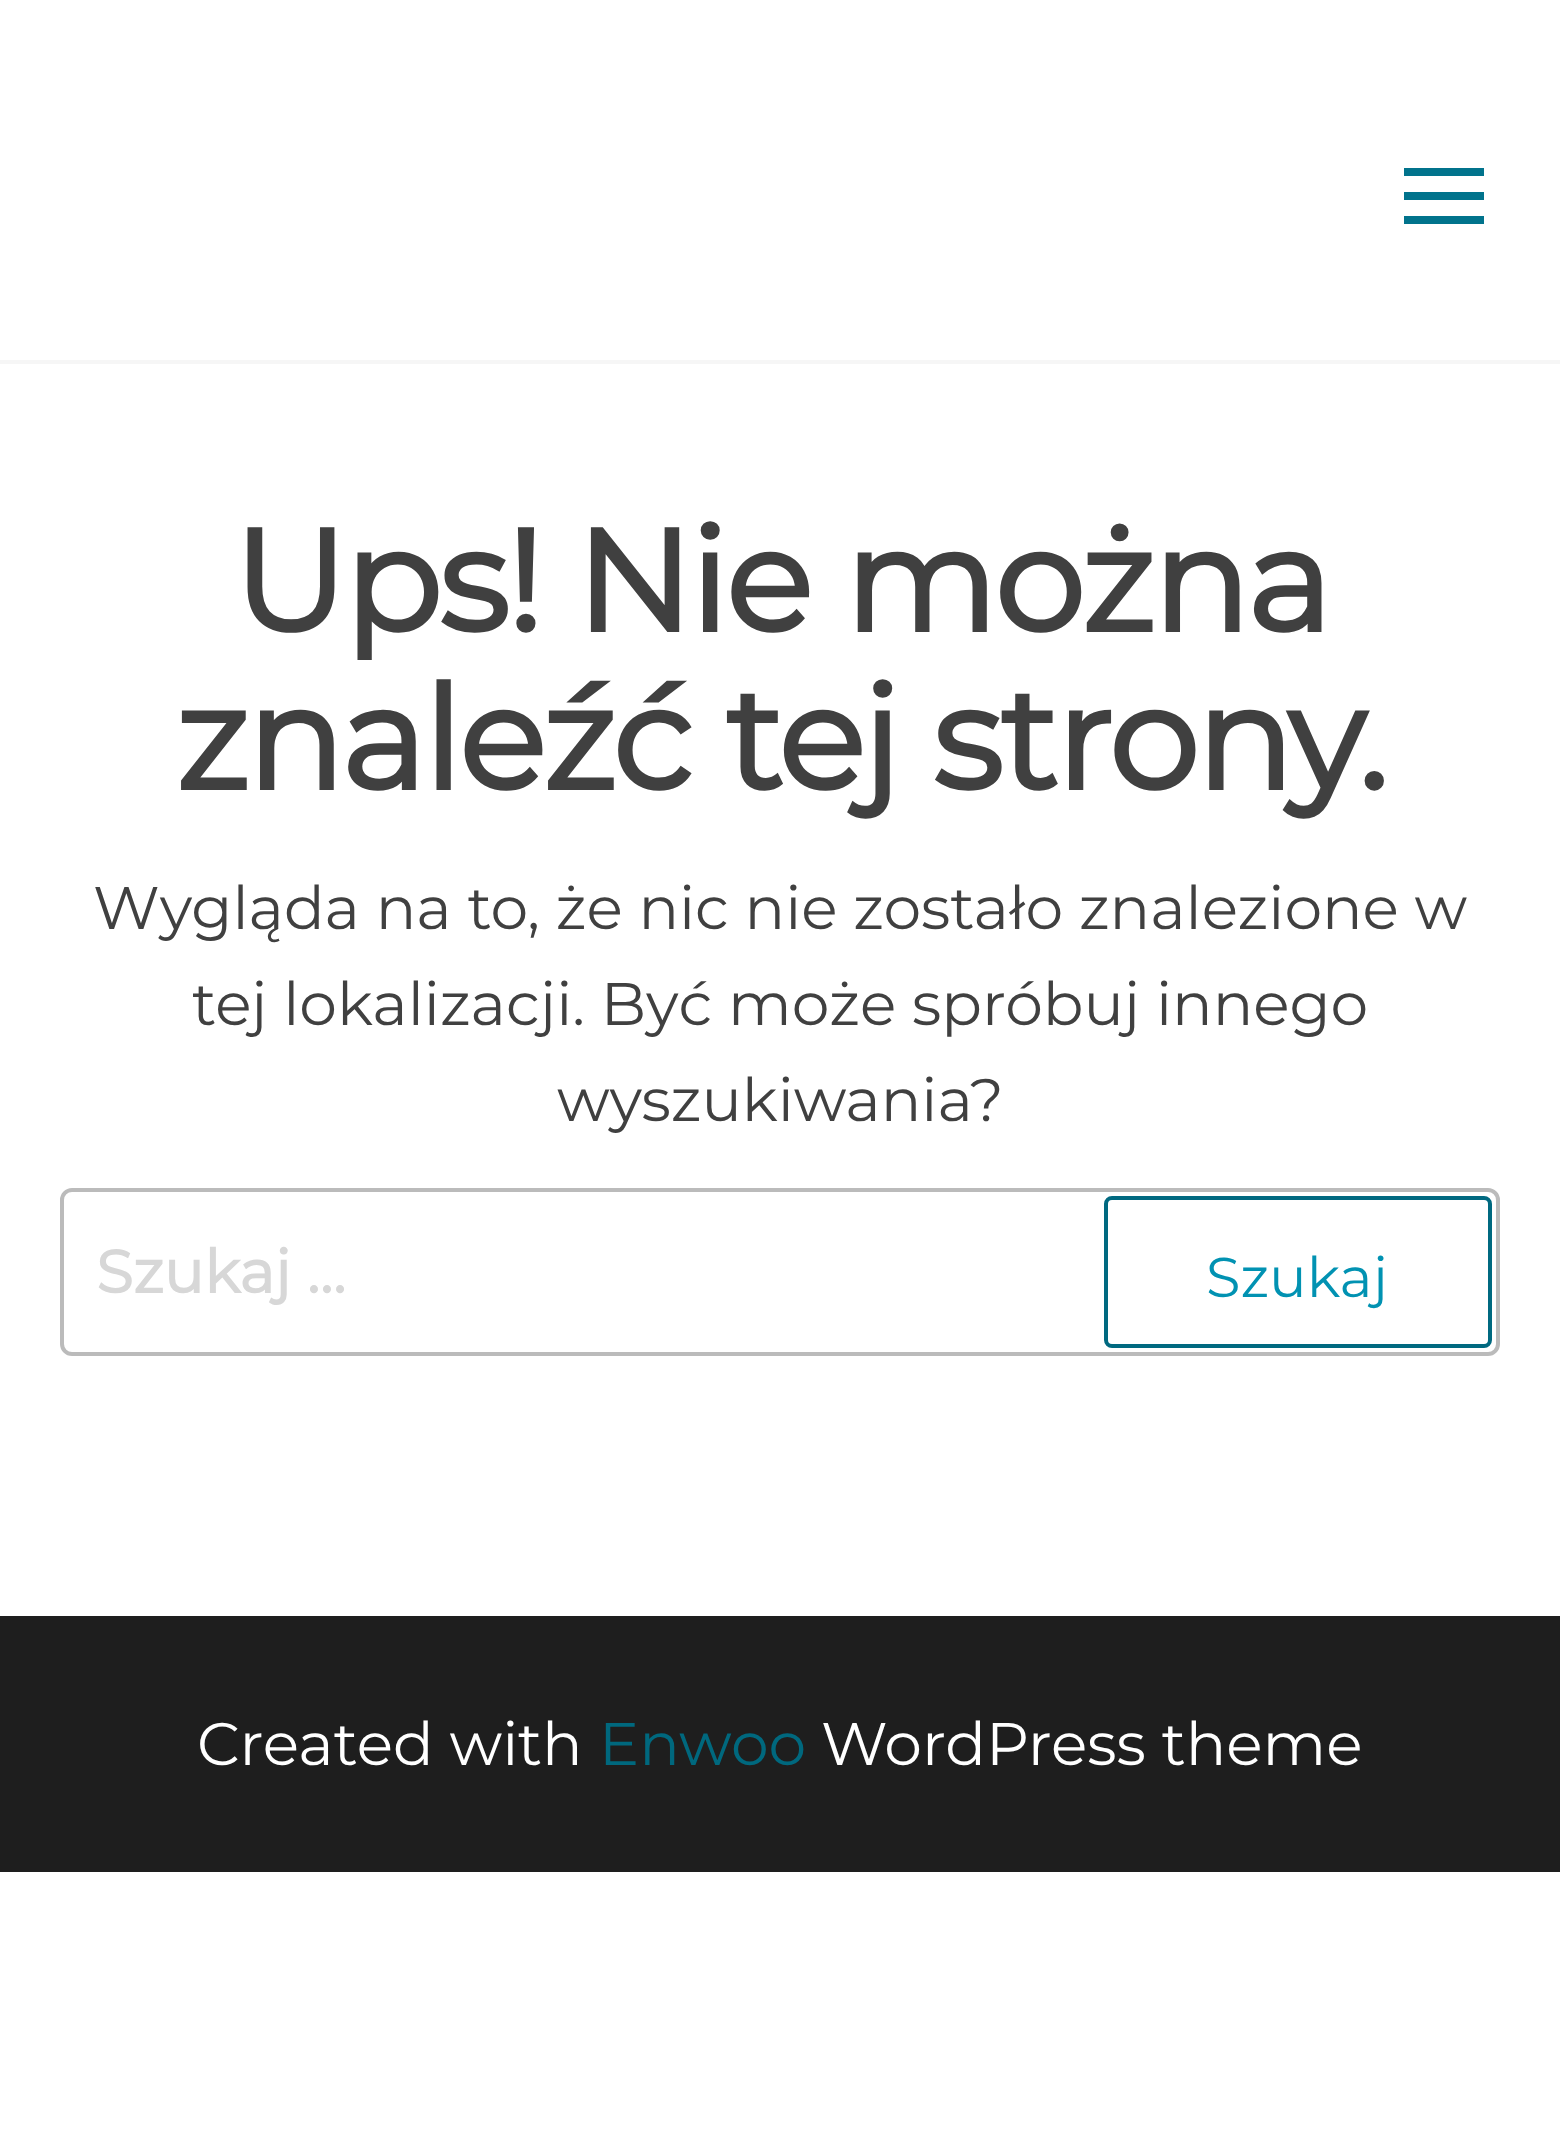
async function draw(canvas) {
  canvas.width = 1560;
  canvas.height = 2143;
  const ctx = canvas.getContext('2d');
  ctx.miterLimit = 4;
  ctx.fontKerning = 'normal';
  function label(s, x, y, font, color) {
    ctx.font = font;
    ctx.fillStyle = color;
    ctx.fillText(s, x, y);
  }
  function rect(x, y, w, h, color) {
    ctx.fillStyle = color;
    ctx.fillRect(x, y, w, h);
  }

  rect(0, 0, 1560, 2143, '#fff');
  rect(0, 360, 1560, 4, '#f6f6f6');
  rect(1404, 192, 80, 8, '#01738c');
  rect(1404, 168, 80, 8, '#01738c');
  rect(1404, 216, 80, 8, '#01738c');
  ctx.letterSpacing = '-2.9px';
  label('Ups! Nie można', 232, 632, 'bold 144px Montserrat', '#404040');
  label('znaleźć tej strony.', 175, 790, 'bold 144px Montserrat', '#404040');
  ctx.letterSpacing = '0px';
  label('Wygląda na to, że nic nie zostało znalezione w', 93, 929, '100 60px Montserrat', '#404040');
  label('tej lokalizacji. Być może spróbuj innego', 192, 1025, '100 60px Montserrat', '#404040');
  label('wyszukiwania?', 557, 1121, '100 60px Montserrat', '#404040');
  ctx.beginPath();
  ctx.roundRect(62, 1190, 1436, 164, 10);
  ctx.strokeStyle = '#bbb';
  ctx.lineWidth = 4;
  ctx.stroke();
  label('Szukaj …', 96, 1293, 'bold 60px Montserrat', '#d7d7d7');
  ctx.beginPath();
  ctx.roundRect(1106, 1198, 384, 148, 6);
  ctx.strokeStyle = '#006980';
  ctx.stroke();
  label('Szukaj', 1206, 1297, '100 56px Montserrat', '#0192b2');
  rect(0, 1616, 1560, 256, '#1e1e1e');
  label('Created with', 197, 1765, '100 60px Montserrat', '#fff');
  label('Enwoo', 599, 1765, '100 60px Montserrat', '#00687e');
  label('WordPress theme', 821, 1765, '100 60px Montserrat', '#fff');
}

draw(document.querySelector('canvas'));
